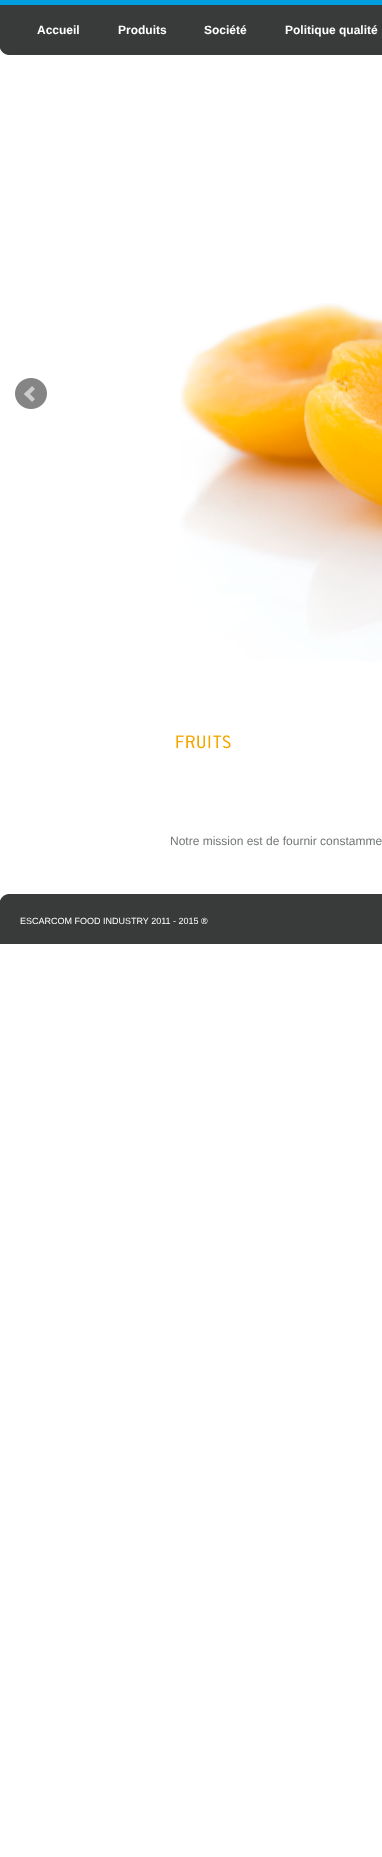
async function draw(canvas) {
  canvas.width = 382;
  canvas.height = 1857;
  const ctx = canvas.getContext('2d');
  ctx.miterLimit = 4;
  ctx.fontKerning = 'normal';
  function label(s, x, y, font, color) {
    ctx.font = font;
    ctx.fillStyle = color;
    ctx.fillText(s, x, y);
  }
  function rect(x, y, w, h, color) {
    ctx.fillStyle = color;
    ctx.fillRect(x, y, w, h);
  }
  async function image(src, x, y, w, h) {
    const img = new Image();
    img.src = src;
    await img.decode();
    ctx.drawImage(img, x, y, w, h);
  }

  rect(0, 0, 382, 1857, '#fff');
  await image('assets/img1.png', 0, 0, 382, 55);
  label('Accueil', 37, 34, 'bold 12px Liberation Sans', '#fff');
  label('Produits', 118, 34, 'bold 12px Liberation Sans', '#fff');
  label('Société', 204, 34, 'bold 12px Liberation Sans', '#fff');
  label('Politique qualité', 285, 34, 'bold 12px Liberation Sans', '#fff');
  await image('assets/img2.png', 15, 378, 32, 31);
  await image('assets/img3.png', 180, 303, 202, 358);
  await image('assets/img4.png', 176, 735, 55, 14);
  label('Notre mission est de fournir constamme', 170, 845, '12px Liberation Sans', '#727876');
  await image('assets/img5.png', 0, 894, 382, 50);
  label('ESCARCOM FOOD INDUSTRY 2011 - 2015 ®', 20, 924, '9px Liberation Sans', '#fff');
}

draw(document.querySelector('canvas'));
